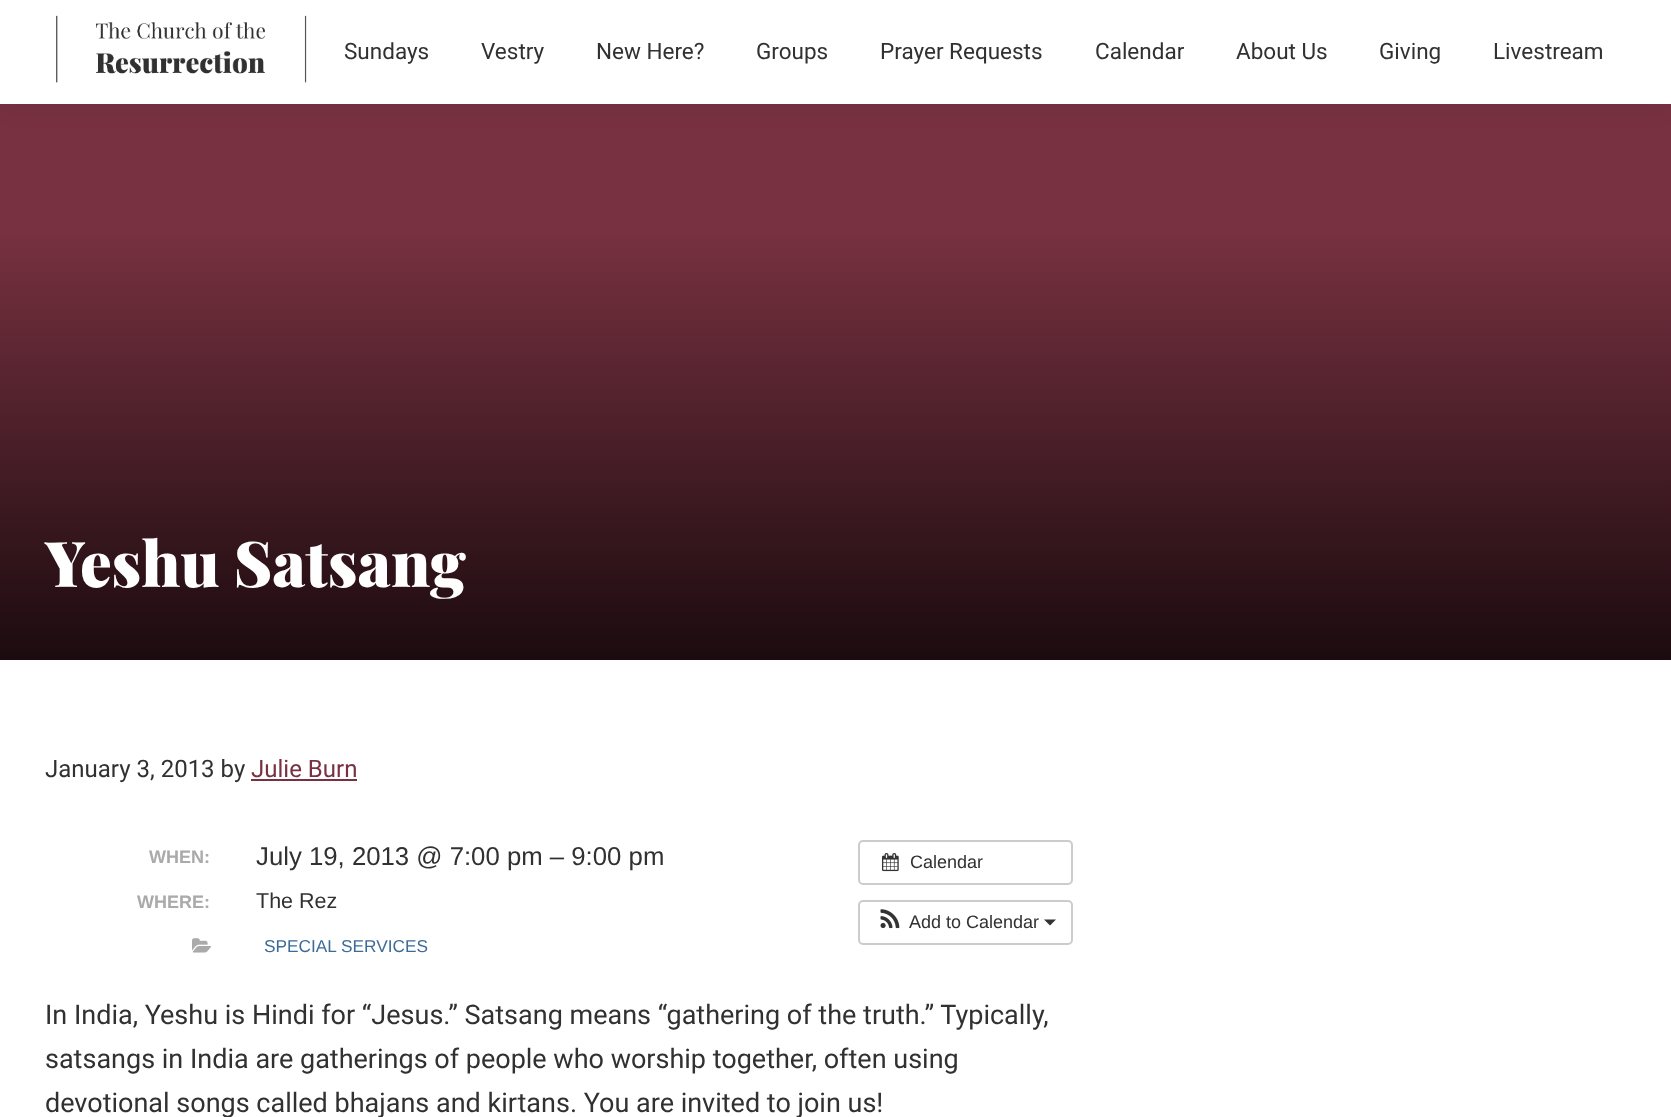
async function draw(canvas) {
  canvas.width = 1671;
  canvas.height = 1117;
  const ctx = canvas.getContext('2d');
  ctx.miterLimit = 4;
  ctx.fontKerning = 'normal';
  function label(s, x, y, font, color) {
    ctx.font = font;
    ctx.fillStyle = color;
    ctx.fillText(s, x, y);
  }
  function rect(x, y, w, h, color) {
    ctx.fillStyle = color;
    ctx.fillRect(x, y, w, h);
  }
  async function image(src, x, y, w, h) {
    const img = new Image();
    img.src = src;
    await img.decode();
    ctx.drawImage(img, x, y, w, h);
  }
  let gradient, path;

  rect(0, 0, 1671, 1117, '#fff');
  gradient = ctx.createLinearGradient(836, 660, 836, 75);
  gradient.addColorStop(0, '#1b0b0f');
  gradient.addColorStop(0.73, '#773140');
  ctx.fillStyle = gradient;
  ctx.fillRect(0, 104, 1671, 556);
  ctx.fillStyle = '#0000000d';
  ctx.filter = 'blur(15px)';
  ctx.beginPath();
  ctx.rect(0, 0, 1671, 104);
  ctx.fill();
  ctx.filter = 'none';
  rect(0, 0, 1671, 104, '#fff');
  await image('assets/img1.png', 56, 15, 251, 68);
  label('Sundays', 344, 59, '22.5px Roboto', '#313131');
  label('Vestry', 481, 59, '22.5px Roboto', '#313131');
  label('New Here?', 596, 59, '22.5px Roboto', '#313131');
  label('Groups', 756, 59, '22.5px Roboto', '#313131');
  label('Prayer Requests', 880, 59, '22.5px Roboto', '#313131');
  label('Calendar', 1095, 59, '22.5px Roboto', '#313131');
  label('About Us', 1236, 59, '22.5px Roboto', '#313131');
  label('Giving', 1379, 59, '22.5px Roboto', '#313131');
  label('Livestream', 1493, 59, '22.5px Roboto', '#313131');
  label('Yeshu Satsang', 45, 587, '900 63px Playfair Display', '#fff');
  label('January 3, 2013 by', 45, 777, '24px Roboto', '#313131');
  label('Julie Burn', 251, 777, '24px Roboto', '#763240');
  rect(251, 779, 106, 2, '#763240');
  label('WHEN:', 149, 863, 'bold 18px Liberation Sans', '#aaa');
  label('July 19, 2013 @ 7:00 pm – 9:00 pm', 256, 865, '25.75px Liberation Sans', '#313131');
  label('WHERE:', 137, 908, 'bold 18px Liberation Sans', '#aaa');
  label('The Rez', 256, 908, '21.5px Liberation Sans', '#313131');
  await image('assets/img2.png', 192, 938, 19, 15);
  label('SPECIAL SERVICES', 264, 952, '17.25px Liberation Sans', '#3d6b99');
  ctx.beginPath();
  ctx.roundRect(859, 841, 213, 43, 4);
  ctx.strokeStyle = '#ccc';
  ctx.lineWidth = 2;
  ctx.stroke();
  await image('assets/img3.png', 882, 853, 17, 19);
  label('Calendar', 910, 868, '18px Liberation Sans', '#313131');
  ctx.beginPath();
  ctx.roundRect(859, 901, 213, 43, 4);
  ctx.stroke();
  await image('assets/img4.png', 880, 909, 20, 20);
  label('Add to Calendar', 909, 928, '18px Liberation Sans', '#313131');
  ctx.fillStyle = '#333';
  path = new Path2D('M1044 919.5H1056L1050 925.5Z');
  ctx.fill(path);
  label('In India, Yeshu is Hindi for “Jesus.” Satsang means “gathering of the truth.” Typically,', 45, 1024, '27px Roboto', '#313131');
  label('satsangs in India are gatherings of people who worship together, often using', 45, 1068, '27px Roboto', '#313131');
  label('devotional songs called bhajans and kirtans. You are invited to join us!', 45, 1112, '27px Roboto', '#313131');
}

draw(document.querySelector('canvas'));
